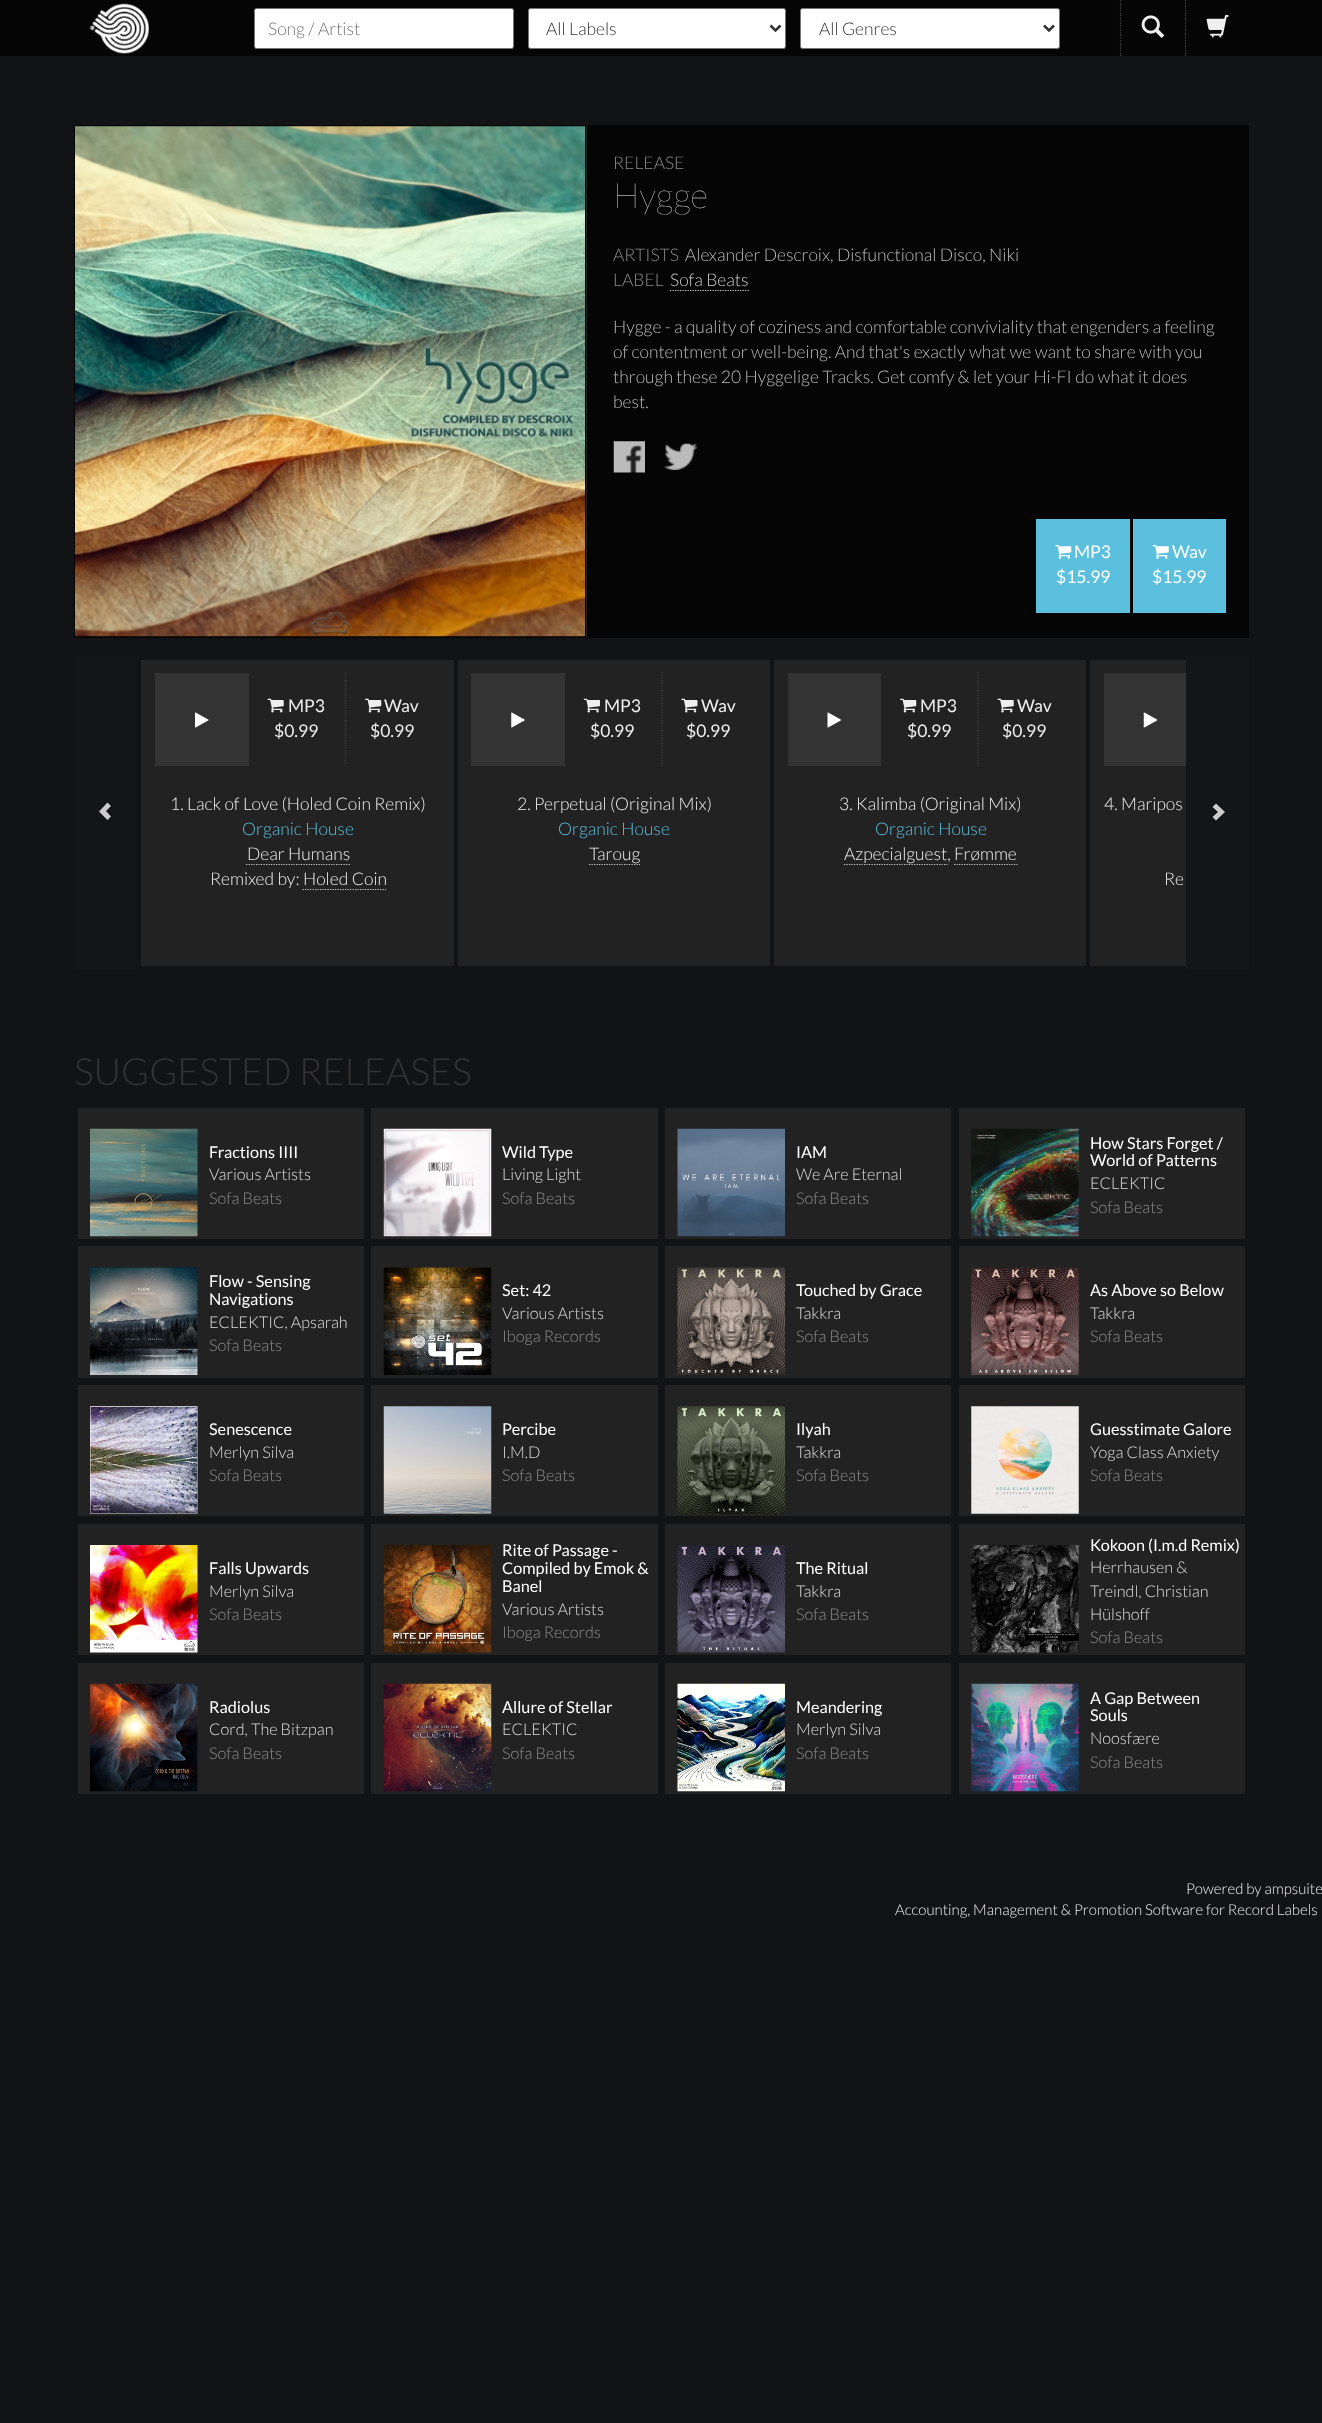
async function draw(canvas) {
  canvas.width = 1322;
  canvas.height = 2423;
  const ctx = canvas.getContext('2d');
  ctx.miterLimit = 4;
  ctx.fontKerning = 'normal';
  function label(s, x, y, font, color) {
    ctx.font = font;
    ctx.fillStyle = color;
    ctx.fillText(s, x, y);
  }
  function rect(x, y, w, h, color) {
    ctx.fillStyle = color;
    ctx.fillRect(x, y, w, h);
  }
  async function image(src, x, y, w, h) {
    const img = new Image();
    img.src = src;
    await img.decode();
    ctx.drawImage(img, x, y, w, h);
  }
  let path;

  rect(0, 0, 1322, 2423, '#121314');
  rect(0, 0, 1322, 56, '#050505');
  await image('assets/img1.png', 89, 3, 60, 51);
  path = new Path2D('M1120.5 0V56');
  ctx.strokeStyle = '#444';
  ctx.lineWidth = 1.2;
  ctx.setLineDash([1.25, 1.25]);
  ctx.stroke(path);
  await image('assets/img2.png', 1141, 15, 24, 23);
  path = new Path2D('M1185.5 0V56');
  ctx.stroke(path);
  await image('assets/img3.png', 1206, 15, 23, 23);
  ctx.fillStyle = '#fff';
  ctx.beginPath();
  ctx.roundRect(254.5, 8.5, 259, 40, 2);
  ctx.fill();
  ctx.strokeStyle = '#767676';
  ctx.lineWidth = 1;
  ctx.setLineDash([]);
  ctx.stroke();
  label('Song / Artist', 268, 35, '300 17.5px Lato', '#757575');
  ctx.fillStyle = '#fff';
  ctx.beginPath();
  ctx.roundRect(528.5, 8.5, 257, 40, 2);
  ctx.fill();
  ctx.stroke();
  path = new Path2D('M770.5 25.5L775.5 30.5L780.5 25.5');
  ctx.strokeStyle = '#333';
  ctx.lineWidth = 2.5;
  ctx.stroke(path);
  label('All Labels', 546, 35, '300 17.5px Lato', '#333');
  ctx.fillStyle = '#fff';
  ctx.beginPath();
  ctx.roundRect(800.5, 8.5, 259, 40, 2);
  ctx.fill();
  ctx.strokeStyle = '#767676';
  ctx.lineWidth = 1;
  ctx.stroke();
  path = new Path2D('M1044 25.5L1049 30.5L1054 25.5');
  ctx.strokeStyle = '#333';
  ctx.lineWidth = 2.5;
  ctx.stroke(path);
  label('All Genres', 819, 35, '300 17.5px Lato', '#333');
  rect(74, 125, 1175, 513, '#050505');
  rect(586, 125, 1, 513, '#222326');
  await image('assets/img4.png', 75, 126, 510, 511);
  label('RELEASE', 613, 169, '300 17.5px Lato', '#8b8b8b');
  label('Hygge', 613, 208, '100 35px Lato', '#eee');
  label('ARTISTS', 613, 261, '300 17.5px Lato', '#8b8b8b');
  label('Alexander Descroix, Disfunctional Disco, Niki', 685, 261, '300 17.5px Lato', '#bbb');
  label('LABEL', 613, 286, '300 17.5px Lato', '#8b8b8b');
  label('Sofa Beats', 670, 286, '300 17.5px Lato', '#ccc');
  path = new Path2D('M670 290.5H749');
  ctx.strokeStyle = '#ccc';
  ctx.lineWidth = 1.2;
  ctx.setLineDash([1.25, 1.25]);
  ctx.stroke(path);
  label('Hygge - a quality of coziness and comfortable conviviality that engenders a feeling', 613, 333, '300 17.5px Lato', '#bbb');
  label('of contentment or well-being. And that\'s exactly what we want to share with you', 613, 358, '300 17.5px Lato', '#bbb');
  label('through these 20 Hyggelige Tracks. Get comfy & let your Hi-FI do what it does', 613, 383, '300 17.5px Lato', '#bbb');
  label('best.', 613, 408, '300 17.5px Lato', '#bbb');
  await image('assets/img5.png', 613, 441, 32, 32);
  await image('assets/img6.png', 664, 443, 34, 27);
  rect(1036, 519, 94, 94, '#5bc0de');
  await image('assets/img7.png', 1055, 545, 17, 14);
  label('MP3', 1074, 558, '17.5px Lato', '#fff');
  label('$15.99', 1056, 583, '17.5px Lato', '#fff');
  rect(1133, 519, 93, 94, '#5bc0de');
  await image('assets/img8.png', 1152, 545, 17, 14);
  label('Wav', 1172, 558, '17.5px Lato', '#fff');
  label('$15.99', 1152, 583, '17.5px Lato', '#fff');
  rect(74, 656, 62, 313, '#141517');
  ctx.fillStyle = '#ccc';
  path = new Path2D('M99 811.5L107.5 820L111 816.5L106 811L111 806L107.5 802.5Z');
  ctx.fill(path);
  rect(142, 660, 312, 306, '#222');
  rect(141, 660, 1, 306, '#222326');
  rect(155, 673, 94, 93, '#333');
  await image('assets/img9.png', 195, 712, 14, 16);
  await image('assets/img10.png', 267, 698, 17, 15);
  label('MP3', 288, 712, '17.5px Lato', '#eee');
  label('$0.99', 274, 737, '17.5px Lato', '#eee');
  path = new Path2D('M345.5 672.5V766');
  ctx.strokeStyle = '#444';
  ctx.stroke(path);
  await image('assets/img11.png', 365, 698, 17, 15);
  label('Wav', 384, 712, '17.5px Lato', '#eee');
  label('$0.99', 370, 737, '17.5px Lato', '#eee');
  label('1. Lack of Love (Holed Coin Remix)', 170, 810, '300 17.5px Lato', '#eee');
  label('Organic House', 242, 835, '300 17.5px Lato', '#5bc0de');
  label('Dear Humans', 247, 860, '300 17.5px Lato', '#eee');
  path = new Path2D('M246 864.5H350');
  ctx.strokeStyle = '#ccc';
  ctx.stroke(path);
  label('Remixed by: Holed Coin', 210, 885, '300 17.5px Lato', '#eee');
  path = new Path2D('M302.5 889.5H386');
  ctx.stroke(path);
  rect(459, 660, 311, 306, '#222');
  rect(458, 660, 1, 306, '#222326');
  rect(471, 673, 94, 93, '#333');
  await image('assets/img12.png', 511, 712, 14, 16);
  await image('assets/img13.png', 583, 698, 17, 15);
  label('MP3', 604, 712, '17.5px Lato', '#eee');
  label('$0.99', 590, 737, '17.5px Lato', '#eee');
  path = new Path2D('M662 672.5V766');
  ctx.strokeStyle = '#444';
  ctx.stroke(path);
  await image('assets/img14.png', 681, 698, 17, 15);
  label('Wav', 701, 712, '17.5px Lato', '#eee');
  label('$0.99', 686, 737, '17.5px Lato', '#eee');
  label('2. Perpetual (Original Mix)', 517, 810, '300 17.5px Lato', '#eee');
  label('Organic House', 558, 835, '300 17.5px Lato', '#5bc0de');
  path = new Path2D('M589 864.5H640');
  ctx.strokeStyle = '#ccc';
  ctx.stroke(path);
  label('Taroug', 589, 860, '300 17.5px Lato', '#eee');
  rect(775, 660, 311, 306, '#222');
  rect(774, 660, 1, 306, '#222326');
  rect(788, 673, 93, 93, '#333');
  await image('assets/img15.png', 827, 712, 15, 16);
  await image('assets/img11.png', 900, 698, 17, 15);
  label('MP3', 920, 712, '17.5px Lato', '#eee');
  label('$0.99', 907, 737, '17.5px Lato', '#eee');
  path = new Path2D('M978 672.5V766');
  ctx.strokeStyle = '#444';
  ctx.stroke(path);
  await image('assets/img10.png', 997, 698, 17, 15);
  label('Wav', 1017, 712, '17.5px Lato', '#eee');
  label('$0.99', 1002, 737, '17.5px Lato', '#eee');
  label('3. Kalimba (Original Mix)', 839, 810, '300 17.5px Lato', '#eee');
  label('Organic House', 875, 835, '300 17.5px Lato', '#5bc0de');
  path = new Path2D('M844 864.5H947.5');
  ctx.strokeStyle = '#ccc';
  ctx.stroke(path);
  label('Azpecialguest, Frømme', 844, 860, '300 17.5px Lato', '#eee');
  path = new Path2D('M954 864.5H1017.5');
  ctx.stroke(path);
  rect(1091, 660, 95, 306, '#222');
  rect(1090, 660, 1, 306, '#222326');
  rect(1104, 673, 82, 93, '#333');
  await image('assets/img16.png', 1143, 712, 15, 16);
  label('4. Maripos', 1104, 810, '300 17.5px Lato', '#eee');
  label('Re', 1164, 885, '300 17.5px Lato', '#eee');
  rect(1186, 656, 63, 313, '#141517');
  ctx.fillStyle = '#ccc';
  path = new Path2D('M1212.5 817L1218 812L1212.5 807L1216 803.5L1225 812L1216 820.5Z');
  ctx.fill(path);
  label('SUGGESTED RELEASES', 74, 1085, '300 37.5px Lato', '#333');
  rect(78, 1108, 286, 131, '#222');
  await image('assets/img17.png', 90, 1128, 108, 109);
  label('Fractions IIII', 209, 1158, '16.25px Lato', '#fff');
  label('Various Artists', 209, 1180, '300 16.25px Lato', '#ddd');
  label('Sofa Beats', 209, 1204, '300 16.25px Lato', '#8b8b8b');
  rect(371, 1108, 287, 131, '#222');
  await image('assets/img18.png', 383, 1128, 109, 109);
  label('Wild Type', 502, 1158, '16.25px Lato', '#fff');
  label('Living Light', 502, 1180, '300 16.25px Lato', '#ddd');
  label('Sofa Beats', 502, 1204, '300 16.25px Lato', '#8b8b8b');
  rect(665, 1108, 286, 131, '#222');
  await image('assets/img19.png', 677, 1128, 108, 109);
  label('IAM', 796, 1158, '16.25px Lato', '#fff');
  label('We Are Eternal', 796, 1180, '300 16.25px Lato', '#ddd');
  label('Sofa Beats', 796, 1204, '300 16.25px Lato', '#8b8b8b');
  rect(959, 1108, 286, 131, '#222');
  await image('assets/img20.png', 971, 1128, 108, 109);
  label('How Stars Forget /', 1090, 1149, '16.25px Lato', '#fff');
  label('World of Patterns', 1090, 1166, '16.25px Lato', '#fff');
  label('ECLEKTIC', 1090, 1189, '300 16.25px Lato', '#ddd');
  label('Sofa Beats', 1090, 1213, '300 16.25px Lato', '#8b8b8b');
  rect(78, 1246, 286, 132, '#222');
  await image('assets/img21.png', 90, 1267, 108, 108);
  label('Flow - Sensing', 209, 1287, '16.25px Lato', '#fff');
  label('Navigations', 209, 1305, '16.25px Lato', '#fff');
  label('ECLEKTIC, Apsarah', 209, 1328, '300 16.25px Lato', '#ddd');
  label('Sofa Beats', 209, 1351, '300 16.25px Lato', '#8b8b8b');
  rect(371, 1246, 287, 132, '#222');
  await image('assets/img22.png', 383, 1267, 109, 108);
  label('Set: 42', 502, 1296, '16.25px Lato', '#fff');
  label('Various Artists', 502, 1319, '300 16.25px Lato', '#ddd');
  label('Iboga Records', 502, 1342, '300 16.25px Lato', '#8b8b8b');
  rect(665, 1246, 286, 132, '#222');
  await image('assets/img23.png', 677, 1267, 108, 108);
  label('Touched by Grace', 796, 1296, '16.25px Lato', '#fff');
  label('Takkra', 796, 1319, '300 16.25px Lato', '#ddd');
  label('Sofa Beats', 796, 1342, '300 16.25px Lato', '#8b8b8b');
  rect(959, 1246, 286, 132, '#222');
  await image('assets/img24.png', 971, 1267, 108, 108);
  label('As Above so Below', 1090, 1296, '16.25px Lato', '#fff');
  label('Takkra', 1090, 1319, '300 16.25px Lato', '#ddd');
  label('Sofa Beats', 1090, 1342, '300 16.25px Lato', '#8b8b8b');
  rect(78, 1385, 286, 131, '#222');
  await image('assets/img25.png', 90, 1406, 108, 108);
  label('Senescence', 209, 1435, '16.25px Lato', '#fff');
  label('Merlyn Silva', 209, 1458, '300 16.25px Lato', '#ddd');
  label('Sofa Beats', 209, 1481, '300 16.25px Lato', '#8b8b8b');
  rect(371, 1385, 287, 131, '#222');
  await image('assets/img26.png', 383, 1406, 109, 108);
  label('Percibe', 502, 1435, '16.25px Lato', '#fff');
  label('I.M.D', 502, 1458, '300 16.25px Lato', '#ddd');
  label('Sofa Beats', 502, 1481, '300 16.25px Lato', '#8b8b8b');
  rect(665, 1385, 286, 131, '#222');
  await image('assets/img27.png', 677, 1406, 108, 108);
  label('Ilyah', 796, 1435, '16.25px Lato', '#fff');
  label('Takkra', 796, 1458, '300 16.25px Lato', '#ddd');
  label('Sofa Beats', 796, 1481, '300 16.25px Lato', '#8b8b8b');
  rect(959, 1385, 286, 131, '#222');
  await image('assets/img28.png', 971, 1406, 108, 108);
  label('Guesstimate Galore', 1090, 1435, '16.25px Lato', '#fff');
  label('Yoga Class Anxiety', 1090, 1458, '300 16.25px Lato', '#ddd');
  label('Sofa Beats', 1090, 1481, '300 16.25px Lato', '#8b8b8b');
  rect(78, 1524, 286, 131, '#222');
  await image('assets/img29.png', 90, 1545, 108, 108);
  label('Falls Upwards', 209, 1574, '16.25px Lato', '#fff');
  label('Merlyn Silva', 209, 1597, '300 16.25px Lato', '#ddd');
  label('Sofa Beats', 209, 1620, '300 16.25px Lato', '#8b8b8b');
  rect(371, 1524, 287, 131, '#222');
  await image('assets/img30.png', 383, 1545, 109, 108);
  label('Rite of Passage -', 502, 1556, '16.25px Lato', '#fff');
  label('Compiled by Emok &', 502, 1574, '16.25px Lato', '#fff');
  label('Banel', 502, 1592, '16.25px Lato', '#fff');
  label('Various Artists', 502, 1615, '300 16.25px Lato', '#ddd');
  label('Iboga Records', 502, 1638, '300 16.25px Lato', '#8b8b8b');
  rect(665, 1524, 286, 131, '#222');
  await image('assets/img31.png', 677, 1545, 108, 108);
  label('The Ritual', 796, 1574, '16.25px Lato', '#fff');
  label('Takkra', 796, 1597, '300 16.25px Lato', '#ddd');
  label('Sofa Beats', 796, 1620, '300 16.25px Lato', '#8b8b8b');
  rect(959, 1524, 286, 131, '#222');
  await image('assets/img32.png', 971, 1545, 108, 108);
  label('Kokoon (I.m.d Remix)', 1090, 1551, '16.25px Lato', '#fff');
  label('Herrhausen &', 1090, 1573, '300 16.25px Lato', '#ddd');
  label('Treindl, Christian', 1090, 1597, '300 16.25px Lato', '#ddd');
  label('Hülshoff', 1090, 1620, '300 16.25px Lato', '#ddd');
  label('Sofa Beats', 1090, 1643, '300 16.25px Lato', '#8b8b8b');
  rect(78, 1663, 286, 131, '#222');
  await image('assets/img33.png', 90, 1683, 108, 109);
  label('Radiolus', 209, 1713, '16.25px Lato', '#fff');
  label('Cord, The Bitzpan', 209, 1735, '300 16.25px Lato', '#ddd');
  label('Sofa Beats', 209, 1759, '300 16.25px Lato', '#8b8b8b');
  rect(371, 1663, 287, 131, '#222');
  await image('assets/img34.png', 383, 1683, 109, 109);
  label('Allure of Stellar', 502, 1713, '16.25px Lato', '#fff');
  label('ECLEKTIC', 502, 1735, '300 16.25px Lato', '#ddd');
  label('Sofa Beats', 502, 1759, '300 16.25px Lato', '#8b8b8b');
  rect(665, 1663, 286, 131, '#222');
  await image('assets/img35.png', 677, 1683, 108, 109);
  label('Meandering', 796, 1713, '16.25px Lato', '#fff');
  label('Merlyn Silva', 796, 1735, '300 16.25px Lato', '#ddd');
  label('Sofa Beats', 796, 1759, '300 16.25px Lato', '#8b8b8b');
  rect(959, 1663, 286, 131, '#222');
  await image('assets/img36.png', 971, 1683, 108, 109);
  label('A Gap Between', 1090, 1704, '16.25px Lato', '#fff');
  label('Souls', 1090, 1721, '16.25px Lato', '#fff');
  label('Noosfære', 1090, 1744, '300 16.25px Lato', '#ddd');
  label('Sofa Beats', 1090, 1768, '300 16.25px Lato', '#8b8b8b');
  label('Powered by ampsuite', 1186, 1894, '300 15px Lato', '#eee');
  label('Accounting, Management & Promotion Software for Record Labels', 895, 1915, '300 15px Lato', '#eee');
}

draw(document.querySelector('canvas'));
